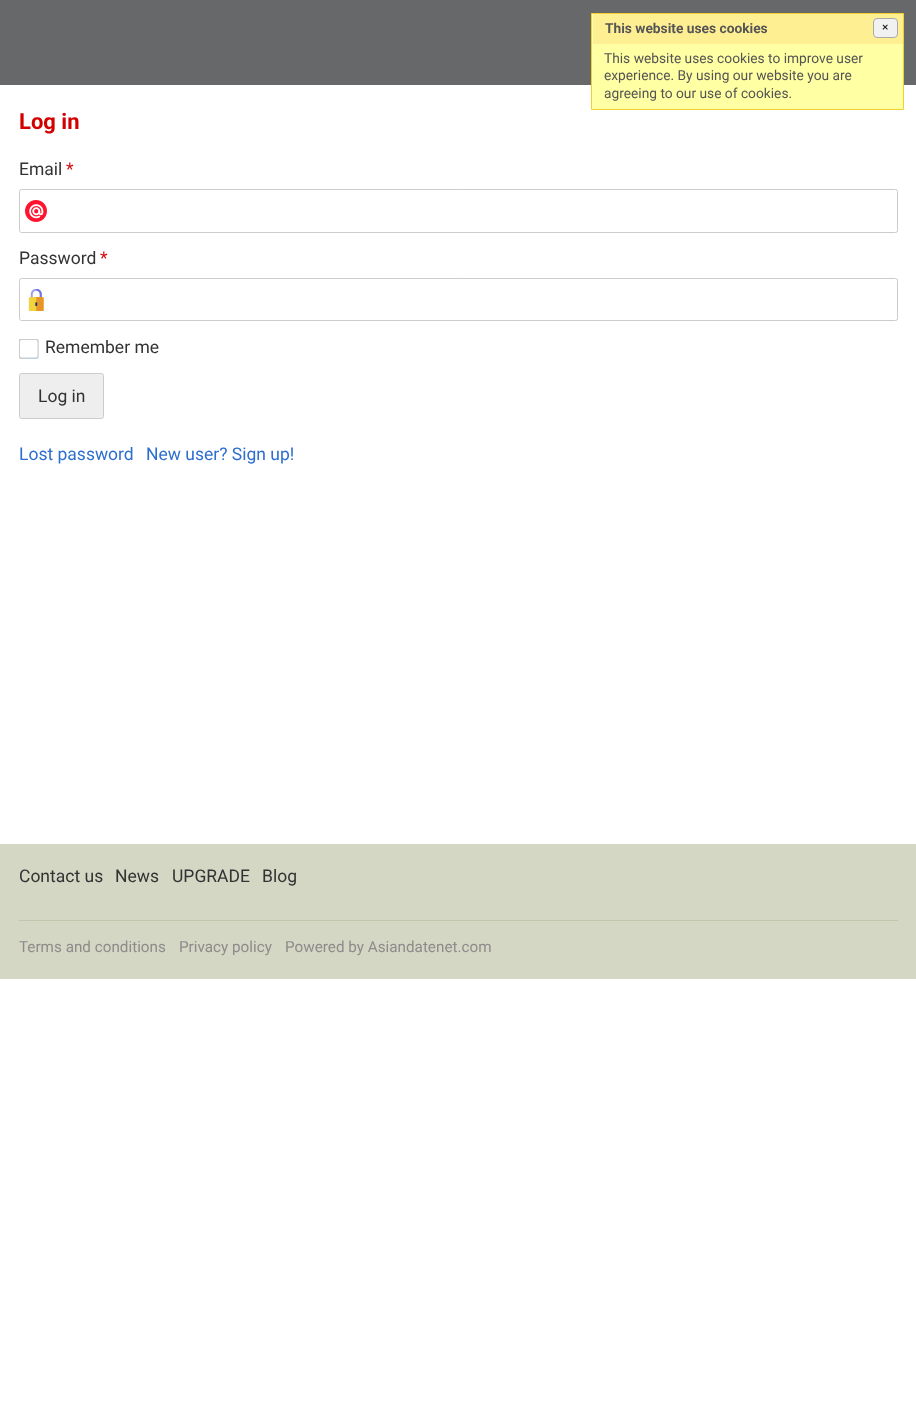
async function draw(canvas) {
  canvas.width = 916;
  canvas.height = 1425;
  const ctx = canvas.getContext('2d');
  ctx.miterLimit = 4;
  ctx.fontKerning = 'normal';
  function label(s, x, y, font, color) {
    ctx.font = font;
    ctx.fillStyle = color;
    ctx.fillText(s, x, y);
  }
  function rect(x, y, w, h, color) {
    ctx.fillStyle = color;
    ctx.fillRect(x, y, w, h);
  }
  async function image(src, x, y, w, h) {
    const img = new Image();
    img.src = src;
    await img.decode();
    ctx.drawImage(img, x, y, w, h);
  }

  rect(0, 0, 916, 1425, '#fff');
  rect(0, 0, 916, 85, '#66686a');
  ctx.fillStyle = '#ffffa3';
  ctx.beginPath();
  ctx.rect(591.5, 13.5, 312, 96);
  ctx.fill();
  ctx.strokeStyle = '#f1d031';
  ctx.stroke();
  rect(593, 14, 310, 30, '#ffef93');
  label('This website uses cookies', 605, 33, 'bold 13.75px Roboto', '#555');
  ctx.fillStyle = '#f1f1f1';
  ctx.beginPath();
  ctx.roundRect(873.5, 18.5, 24, 19, 3.5);
  ctx.fill();
  ctx.strokeStyle = '#aaa';
  ctx.stroke();
  label('×', 882, 31, '12px Roboto', '#111');
  label('This website uses cookies to improve user', 604, 63, '13.75px Roboto', '#555');
  label('experience. By using our website you are', 604, 80, '13.75px Roboto', '#555');
  label('agreeing to our use of cookies.', 604, 98, '13.75px Roboto', '#555');
  label('Log in', 19, 129, 'bold 22px Roboto', '#d20000');
  label('Email', 19, 175, '17.5px Roboto', '#333');
  label('*', 66, 175, '17.5px Roboto', '#d00e12');
  await image('assets/img1.png', 25, 200, 22, 22);
  ctx.beginPath();
  ctx.roundRect(19.5, 189.5, 878, 43, 2);
  ctx.strokeStyle = '#ccc';
  ctx.stroke();
  label('Password', 19, 264, '17.5px Roboto', '#333');
  label('*', 100, 264, '17.5px Roboto', '#d00e12');
  await image('assets/img2.png', 28, 289, 16, 22);
  ctx.beginPath();
  ctx.roundRect(19.5, 278.5, 878, 42, 2);
  ctx.stroke();
  await image('assets/img3.png', 19, 339, 20, 20);
  label('Remember me', 45, 353, '17.5px Roboto', '#333');
  ctx.fillStyle = '#eee';
  ctx.beginPath();
  ctx.roundRect(19.5, 373.5, 84, 45, 2);
  ctx.fill();
  ctx.stroke();
  label('Log in', 38, 402, '17.5px Roboto', '#333');
  label('Lost password', 19, 460, '17.5px Roboto', '#2e6ecf');
  label('New user? Sign up!', 146, 460, '17.5px Roboto', '#2e6ecf');
  rect(0, 844, 916, 135, '#d3d7c4');
  label('Contact us', 19, 882, '17.5px Roboto', '#333');
  label('News', 115, 882, '17.5px Roboto', '#333');
  label('UPGRADE', 172, 882, '17.5px Roboto', '#333');
  label('Blog', 262, 882, '17.5px Roboto', '#333');
  rect(19, 920, 879, 1, '#c1c7ac');
  label('Terms and conditions', 19, 952, '15.25px Roboto', '#908b8b');
  label('Privacy policy', 179, 952, '15.25px Roboto', '#908b8b');
  label('Powered by Asiandatenet.com', 285, 952, '15.25px Roboto', '#908b8b');
}

draw(document.querySelector('canvas'));
